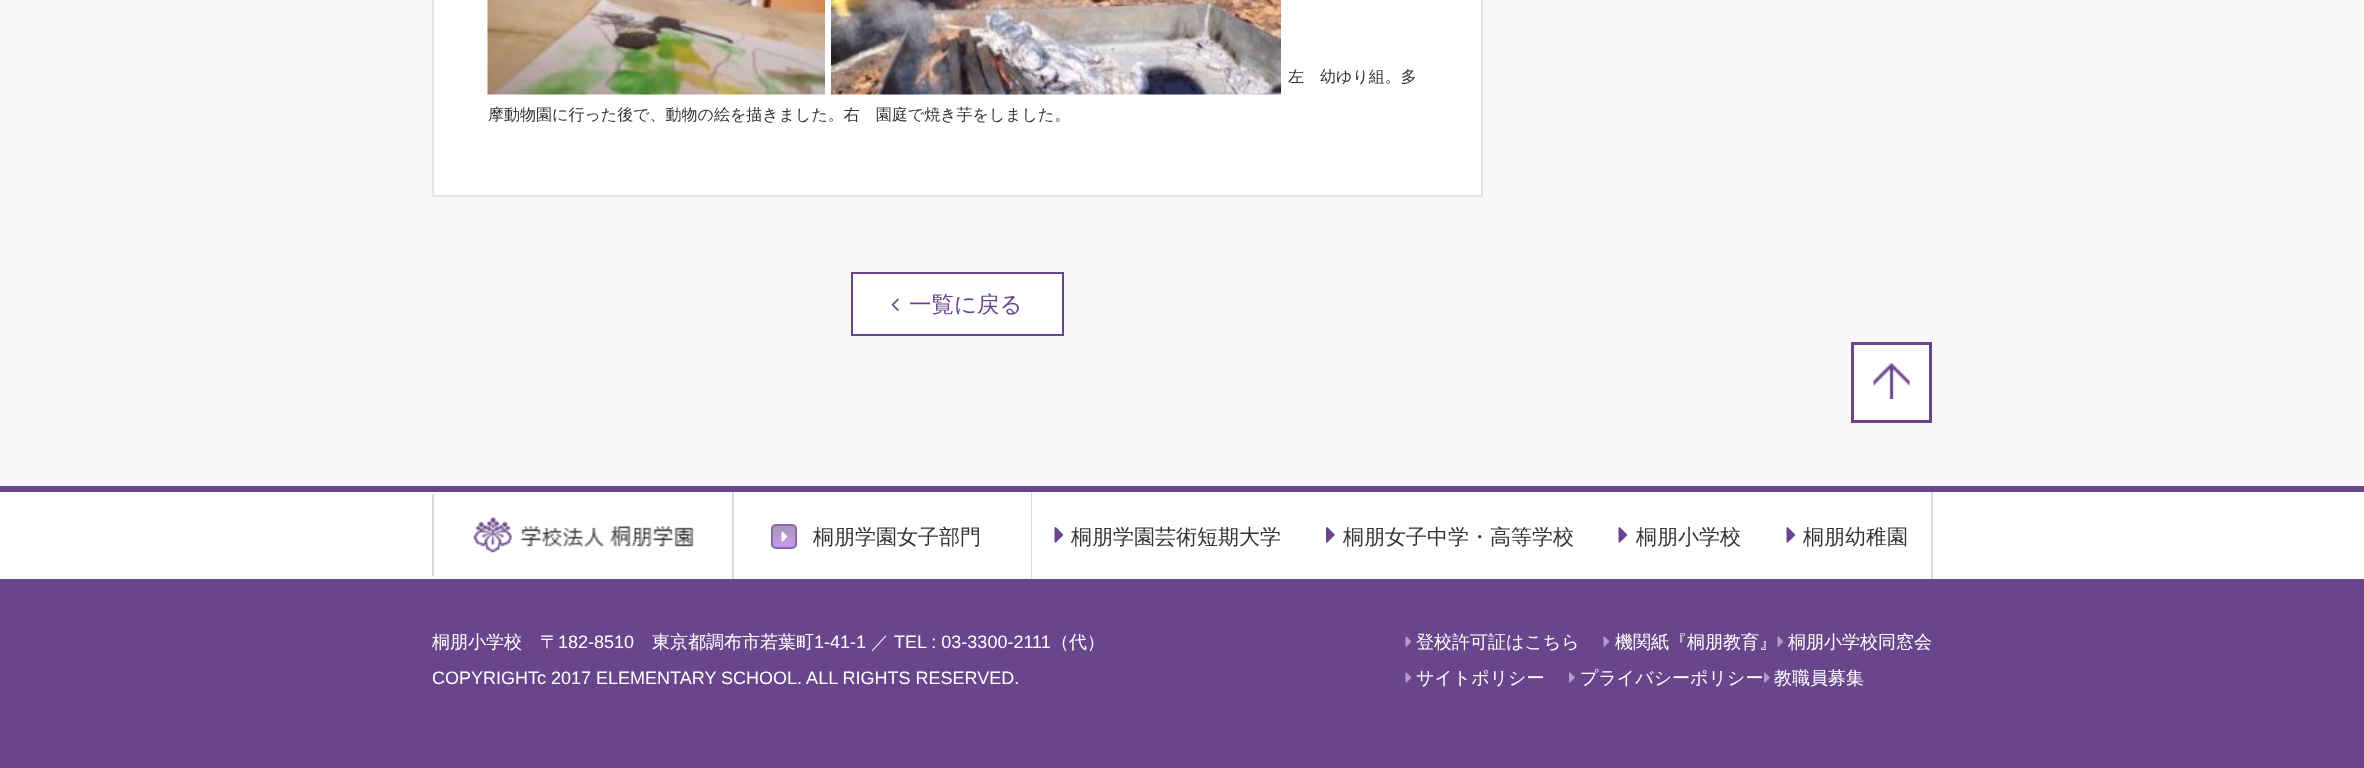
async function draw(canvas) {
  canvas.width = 2364;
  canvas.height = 768;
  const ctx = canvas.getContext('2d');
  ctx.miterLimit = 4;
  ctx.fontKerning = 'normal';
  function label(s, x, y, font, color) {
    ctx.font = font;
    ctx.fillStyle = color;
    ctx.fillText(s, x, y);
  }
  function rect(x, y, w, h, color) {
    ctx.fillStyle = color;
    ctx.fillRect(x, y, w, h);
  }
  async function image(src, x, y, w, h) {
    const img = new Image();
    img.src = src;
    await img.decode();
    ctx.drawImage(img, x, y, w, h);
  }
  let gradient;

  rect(0, 0, 2364, 768, '#f8f8f8');
  rect(434, 0, 1047, 195, '#fff');
  rect(1481, 0, 2, 197, '#e3e3e3');
  rect(432, 195, 1050, 2, '#e3e3e3');
  rect(432, 0, 2, 197, '#e3e3e3');
  await image('assets/img1.png', 487, 0, 338, 95);
  await image('assets/img2.png', 831, 0, 450, 95);
  label('左　幼ゆり組。多', 1288, 82, '500 16px WenQuanYi Zen Hei', '#333');
  label('摩動物園に行った後で、動物の絵を描きました。右　園庭で焼き芋をしました。', 488, 120, '500 16px WenQuanYi Zen Hei', '#333');
  ctx.fillStyle = '#fff';
  ctx.beginPath();
  ctx.rect(852, 273, 211, 62);
  ctx.fill();
  ctx.strokeStyle = '#69468c';
  ctx.lineWidth = 2;
  ctx.stroke();
  await image('assets/img3.png', 891, 298, 8, 13);
  label('一覧に戻る', 909, 312, '500 22.5px WenQuanYi Zen Hei', '#69468c');
  rect(0, 486, 2364, 282, '#69468c');
  rect(0, 492, 2364, 87, '#fff');
  rect(432, 494, 2, 82, '#dadada');
  await image('assets/img4.png', 473, 517, 221, 36);
  rect(1031, 492, 1, 87, '#dadada');
  rect(732, 492, 2, 87, '#dadada');
  ctx.save();
  ctx.beginPath();
  ctx.roundRect(771, 524, 26, 25, 5);
  ctx.clip();
  gradient = ctx.createLinearGradient(784, 525, 784, 548);
  gradient.addColorStop(0.25, '#af96c5');
  gradient.addColorStop(0.98, '#c99af6');
  ctx.fillStyle = gradient;
  ctx.fillRect(771, 525, 26, 23);
  ctx.restore();
  ctx.beginPath();
  ctx.roundRect(772, 525, 24, 23, 4);
  ctx.strokeStyle = '#896aa7';
  ctx.stroke();
  label('桐朋学園女子部門', 813, 544, '500 21px WenQuanYi Zen Hei', '#333');
  await image('assets/img5.png', 781, 531, 7, 11);
  rect(1931, 492, 2, 87, '#dadada');
  await image('assets/img6.png', 1054, 527, 10, 16);
  label('桐朋学園芸術短期大学', 1071, 544, '500 21px WenQuanYi Zen Hei', '#333');
  await image('assets/img7.png', 1326, 527, 9, 16);
  label('桐朋女子中学・高等学校', 1343, 544, '500 21px WenQuanYi Zen Hei', '#333');
  await image('assets/img6.png', 1618, 527, 10, 16);
  label('桐朋小学校', 1636, 544, '500 21px WenQuanYi Zen Hei', '#333');
  await image('assets/img6.png', 1786, 527, 10, 16);
  label('桐朋幼稚園', 1803, 544, '500 21px WenQuanYi Zen Hei', '#333');
  ctx.fillStyle = '#fff';
  ctx.beginPath();
  ctx.rect(1852.5, 343.5, 78, 78);
  ctx.fill();
  ctx.strokeStyle = '#69468c';
  ctx.lineWidth = 3;
  ctx.stroke();
  await image('assets/img8.png', 1873, 363, 37, 36);
  label('桐朋小学校', 432, 648, '500 18px WenQuanYi Zen Hei', '#fff');
  label('〒', 540, 648, '500 18px WenQuanYi Zen Hei', '#fff');
  label('182-8510', 558, 648, '18px Liberation Sans', '#fff');
  label('東京都調布市若葉町', 652, 648, '500 18px WenQuanYi Zen Hei', '#fff');
  label('1-41-1', 814, 648, '18px Liberation Sans', '#fff');
  label('／', 871, 648, '500 18px WenQuanYi Zen Hei', '#fff');
  label('TEL : 03-3300-2111', 894, 648, '18px Liberation Sans', '#fff');
  label('（代）', 1051, 648, '500 18px WenQuanYi Zen Hei', '#fff');
  label('COPYRIGHTc 2017 ELEMENTARY SCHOOL. ALL RIGHTS RESERVED.', 432, 684, '18px Liberation Sans', '#fff');
  await image('assets/img9.png', 1405, 636, 7, 11);
  label('登校許可証はこちら', 1416, 648, '500 18px WenQuanYi Zen Hei', '#fff');
  await image('assets/img9.png', 1603, 636, 7, 11);
  label('機関紙『桐朋教育』', 1615, 648, '500 18px WenQuanYi Zen Hei', '#fff');
  await image('assets/img9.png', 1777, 636, 7, 11);
  label('桐朋小学校同窓会', 1788, 648, '500 18px WenQuanYi Zen Hei', '#fff');
  await image('assets/img9.png', 1405, 672, 7, 11);
  label('サイトポリシー', 1416, 684, '500 18px WenQuanYi Zen Hei', '#fff');
  await image('assets/img10.png', 1569, 672, 6, 11);
  label('プライバシーポリシー', 1580, 684, '500 18px WenQuanYi Zen Hei', '#fff');
  await image('assets/img10.png', 1764, 672, 6, 11);
  label('教職員募集', 1774, 684, '500 18px WenQuanYi Zen Hei', '#fff');
}

draw(document.querySelector('canvas'));
